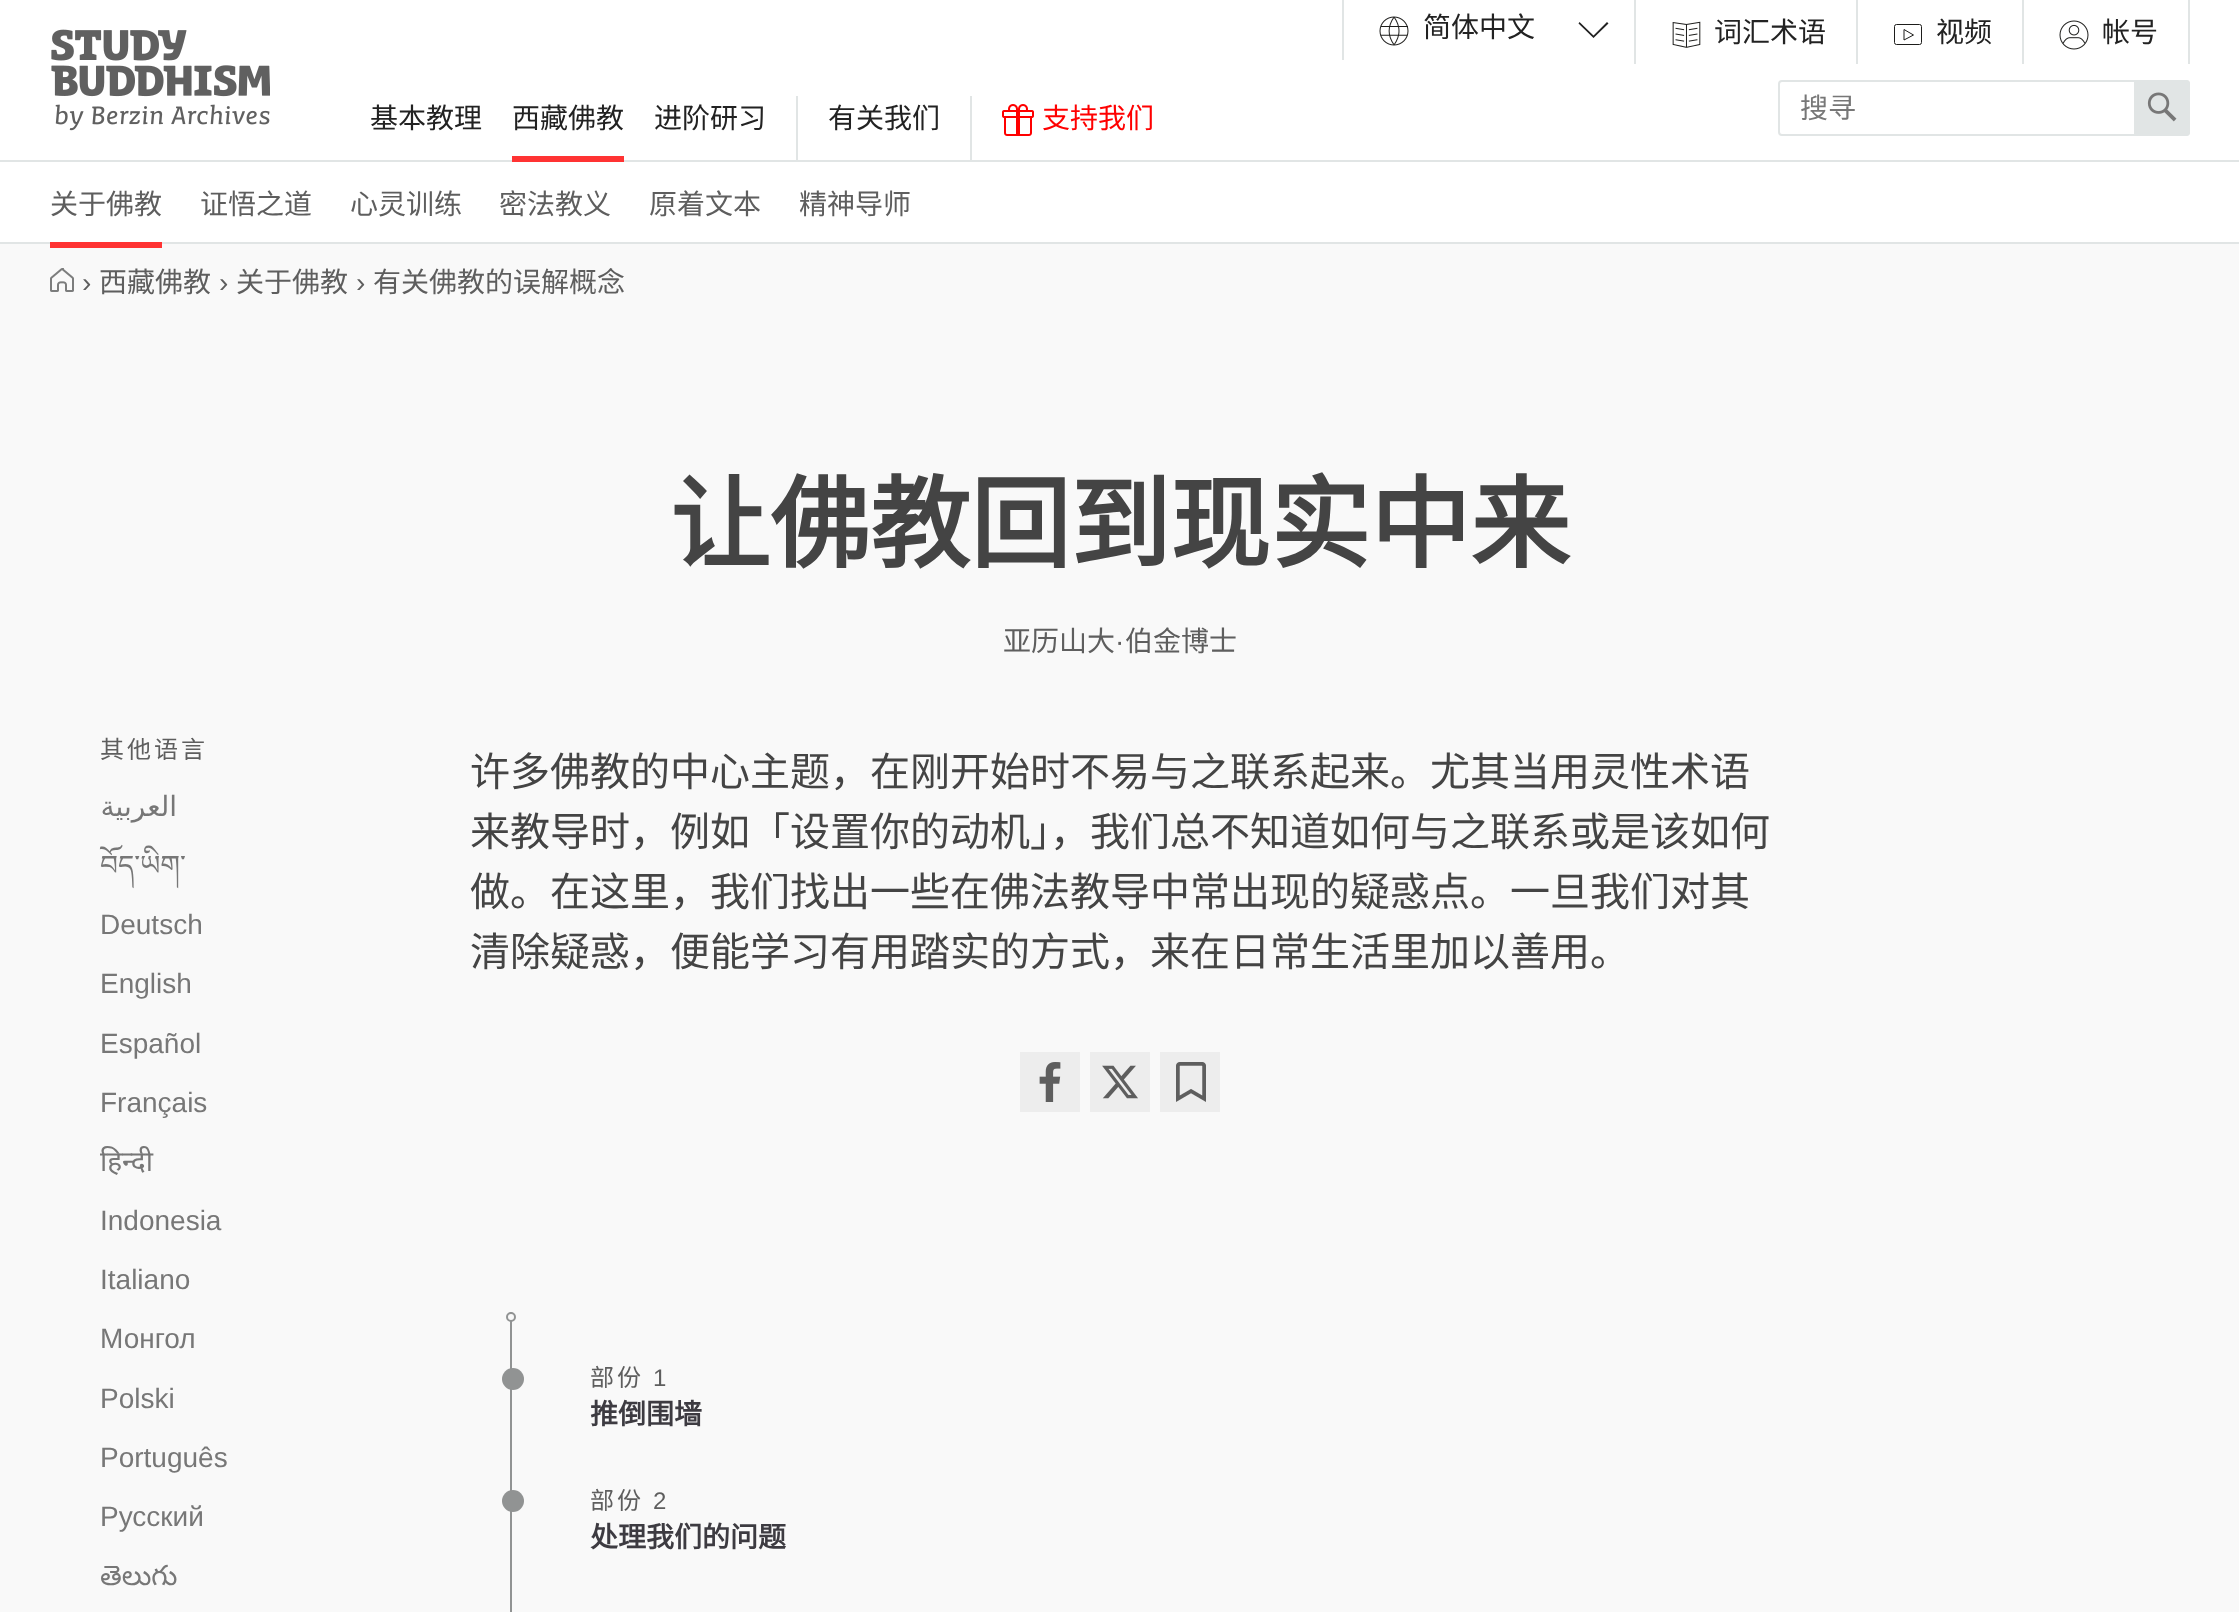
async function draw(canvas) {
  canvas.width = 2239;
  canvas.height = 1612;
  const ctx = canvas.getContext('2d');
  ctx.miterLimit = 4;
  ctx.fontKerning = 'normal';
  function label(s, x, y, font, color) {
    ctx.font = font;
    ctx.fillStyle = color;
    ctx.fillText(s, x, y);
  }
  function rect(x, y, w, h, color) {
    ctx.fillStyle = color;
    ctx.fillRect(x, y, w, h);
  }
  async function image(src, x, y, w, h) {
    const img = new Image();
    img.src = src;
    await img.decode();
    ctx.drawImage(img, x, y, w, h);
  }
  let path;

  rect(0, 0, 2239, 1612, '#f9f9f9');
  rect(0, 0, 2239, 160, '#fff');
  rect(0, 160, 2239, 2, '#e1e5e5');
  rect(1342, 0, 2, 60, '#e1e5e5');
  await image('assets/img1.png', 1379, 16, 30, 30);
  label('简体中文', 1423, 37, '28px Noto Sans CJK SC', '#222');
  path = new Path2D('M1579.5 22L1593.5 35.5L1607 22L1608.5 23.5L1593.5 38L1578.5 23.5Z');
  ctx.fill(path);
  rect(1634, 0, 2, 64, '#e1e5e5');
  await image('assets/img2.png', 1672, 21, 29, 27);
  label('词汇术语', 1714, 42, '28px Noto Sans CJK SC', '#222');
  rect(1856, 0, 2, 64, '#e1e5e5');
  ctx.beginPath();
  ctx.roundRect(1894.5, 24.5, 27, 20, 2);
  ctx.strokeStyle = '#1d1d1b';
  ctx.stroke();
  label('视频', 1936, 42, '28px Noto Sans CJK SC', '#222');
  path = new Path2D('M1904 29.5V40L1913.5 35Z');
  ctx.stroke(path);
  rect(2188, 0, 2, 64, '#e1e5e5');
  rect(2022, 0, 2, 64, '#e1e5e5');
  await image('assets/img3.png', 2059, 20, 30, 30);
  label('帐号', 2102, 42, '28px Noto Sans CJK SC', '#222');
  rect(512, 156, 112, 6, '#f33');
  label('西藏佛教', 512, 128, '28px Noto Sans CJK SC', '#222');
  rect(0, 242, 2239, 2, '#e1e5e5');
  rect(50, 242, 112, 6, '#f33');
  rect(0, 162, 2239, 80, '#fff');
  label('关于佛教', 50, 214, '28px Noto Sans CJK SC', '#5e5e5e');
  label('证悟之道', 200, 214, '28px Noto Sans CJK SC', '#5e5e5e');
  label('心灵训练', 350, 214, '28px Noto Sans CJK SC', '#5e5e5e');
  label('密法教义', 499, 214, '28px Noto Sans CJK SC', '#5e5e5e');
  label('原着文本', 649, 214, '28px Noto Sans CJK SC', '#5e5e5e');
  label('精神导师', 799, 214, '28px Noto Sans CJK SC', '#5e5e5e');
  label('基本教理', 370, 128, '28px Noto Sans CJK SC', '#222');
  label('进阶研习', 654, 128, '28px Noto Sans CJK SC', '#222');
  rect(796, 96, 2, 66, '#e1e5e5');
  label('有关我们', 828, 128, '28px Noto Sans CJK SC', '#222');
  rect(970, 96, 2, 66, '#e1e5e5');
  await image('assets/img4.png', 1002, 104, 32, 32);
  label('支持我们', 1042, 128, '28px Noto Sans CJK SC', '#f00');
  await image('assets/img5.png', 51, 29, 219, 102);
  ctx.beginPath();
  ctx.roundRect(1779, 81, 410, 54, 3);
  ctx.strokeStyle = '#e1e5e5';
  ctx.lineWidth = 2;
  ctx.stroke();
  label('搜寻', 1800, 118, '28px Noto Sans CJK SC', '#777');
  ctx.fillStyle = '#e1e5e5';
  ctx.beginPath();
  ctx.roundRect(2134, 80, 56, 56, [0, 4, 4, 0]);
  ctx.fill();
  await image('assets/img6.png', 2147, 92, 30, 30);
  await image('assets/img7.png', 50, 268, 24, 24);
  label('›', 82, 292, '28px Liberation Sans', '#5e5e5e');
  label('西藏佛教', 99, 292, '28px Noto Sans CJK SC', '#5e5e5e');
  label('›', 219, 292, '28px Liberation Sans', '#5e5e5e');
  label('关于佛教', 236, 292, '28px Noto Sans CJK SC', '#5e5e5e');
  label('›', 356, 292, '28px Liberation Sans', '#5e5e5e');
  label('有关佛教的误解概念', 373, 292, '28px Noto Sans CJK SC', '#5e5e5e');
  label('让佛教回到现实中来', 670, 560, 'bold 100px Noto Sans CJK SC', '#444');
  label('亚历山大', 1003, 651, '28px Noto Sans CJK SC', '#5e5e5e');
  label('·', 1115, 651, '28px Liberation Sans', '#5e5e5e');
  label('伯金博士', 1125, 651, '28px Noto Sans CJK SC', '#5e5e5e');
  ctx.letterSpacing = '3px';
  label('其他语言', 100, 758, '24px Noto Sans CJK SC', '#5e5e5e');
  ctx.letterSpacing = '0px';
  ctx.direction = 'rtl';
  label('العربية', 177, 816, '28px DejaVu Sans', '#777');
  ctx.direction = 'ltr';
  label('བོད་ཡིག་', 100, 875, '28px Noto Serif Tibetan', '#777');
  label('Deutsch', 100, 934, '28px Liberation Sans', '#777');
  label('English', 100, 993, '28px Liberation Sans', '#777');
  label('Español', 100, 1053, '28px Liberation Sans', '#777');
  label('Français', 100, 1112, '28px Liberation Sans', '#777');
  label('हिन्दी', 100, 1171, '28px Noto Sans', '#777');
  label('Indonesia', 100, 1230, '28px Liberation Sans', '#777');
  label('Italiano', 100, 1289, '28px Liberation Sans', '#777');
  label('Монгол', 100, 1348, '28px Liberation Sans', '#777');
  label('Polski', 100, 1408, '28px Liberation Sans', '#777');
  label('Português', 100, 1467, '28px Liberation Sans', '#777');
  label('Русский', 100, 1526, '28px Liberation Sans', '#777');
  label('తెలుగు', 100, 1585, '28px Noto Sans Telugu', '#777');
  label('许多佛教的中心主题，在刚开始时不易与之联系起来。尤其当用灵性术语', 470, 786, '40px Noto Sans CJK SC', '#444');
  label('来教导时，例如「设置你的动机」，我们总不知道如何与之联系或是该如何', 470, 846, '40px Noto Sans CJK SC', '#444');
  label('做。在这里，我们找出一些在佛法教导中常出现的疑惑点。一旦我们对其', 470, 906, '40px Noto Sans CJK SC', '#444');
  label('清除疑惑，便能学习有用踏实的方式，来在日常生活里加以善用。', 470, 966, '40px Noto Sans CJK SC', '#444');
  rect(1020, 1052, 60, 60, '#ededed');
  await image('assets/img8.png', 1039, 1062, 22, 40);
  rect(1090, 1052, 60, 60, '#ededed');
  await image('assets/img9.png', 1102, 1065, 36, 34);
  rect(1160, 1052, 60, 60, '#ededed');
  await image('assets/img10.png', 1176, 1062, 30, 40);
  rect(510, 1312, 2, 300, '#919393');
  ctx.fillStyle = '#f9f9f9';
  ctx.beginPath();
  ctx.arc(511, 1317, 4, 0, 2 * Math.PI);
  ctx.fill();
  ctx.strokeStyle = '#919393';
  ctx.stroke();
  ctx.fillStyle = '#919393';
  ctx.beginPath();
  ctx.arc(513, 1379, 11, 0, 2 * Math.PI);
  ctx.fill();
  ctx.letterSpacing = '3px';
  label('部份', 590, 1386, '24px Noto Sans CJK SC', '#5e5e5e');
  label('1', 653, 1386, '24px Liberation Sans', '#5e5e5e');
  ctx.letterSpacing = '0px';
  label('推倒围墙', 590, 1424, 'bold 28px Noto Sans CJK SC', '#3d3b41');
  ctx.fillStyle = '#919393';
  ctx.beginPath();
  ctx.arc(513, 1501, 11, 0, 2 * Math.PI);
  ctx.fill();
  ctx.letterSpacing = '3px';
  label('部份', 590, 1509, '24px Noto Sans CJK SC', '#5e5e5e');
  label('2', 653, 1509, '24px Liberation Sans', '#5e5e5e');
  ctx.letterSpacing = '0px';
  label('处理我们的问题', 590, 1547, 'bold 28px Noto Sans CJK SC', '#3d3b41');
}

draw(document.querySelector('canvas'));
